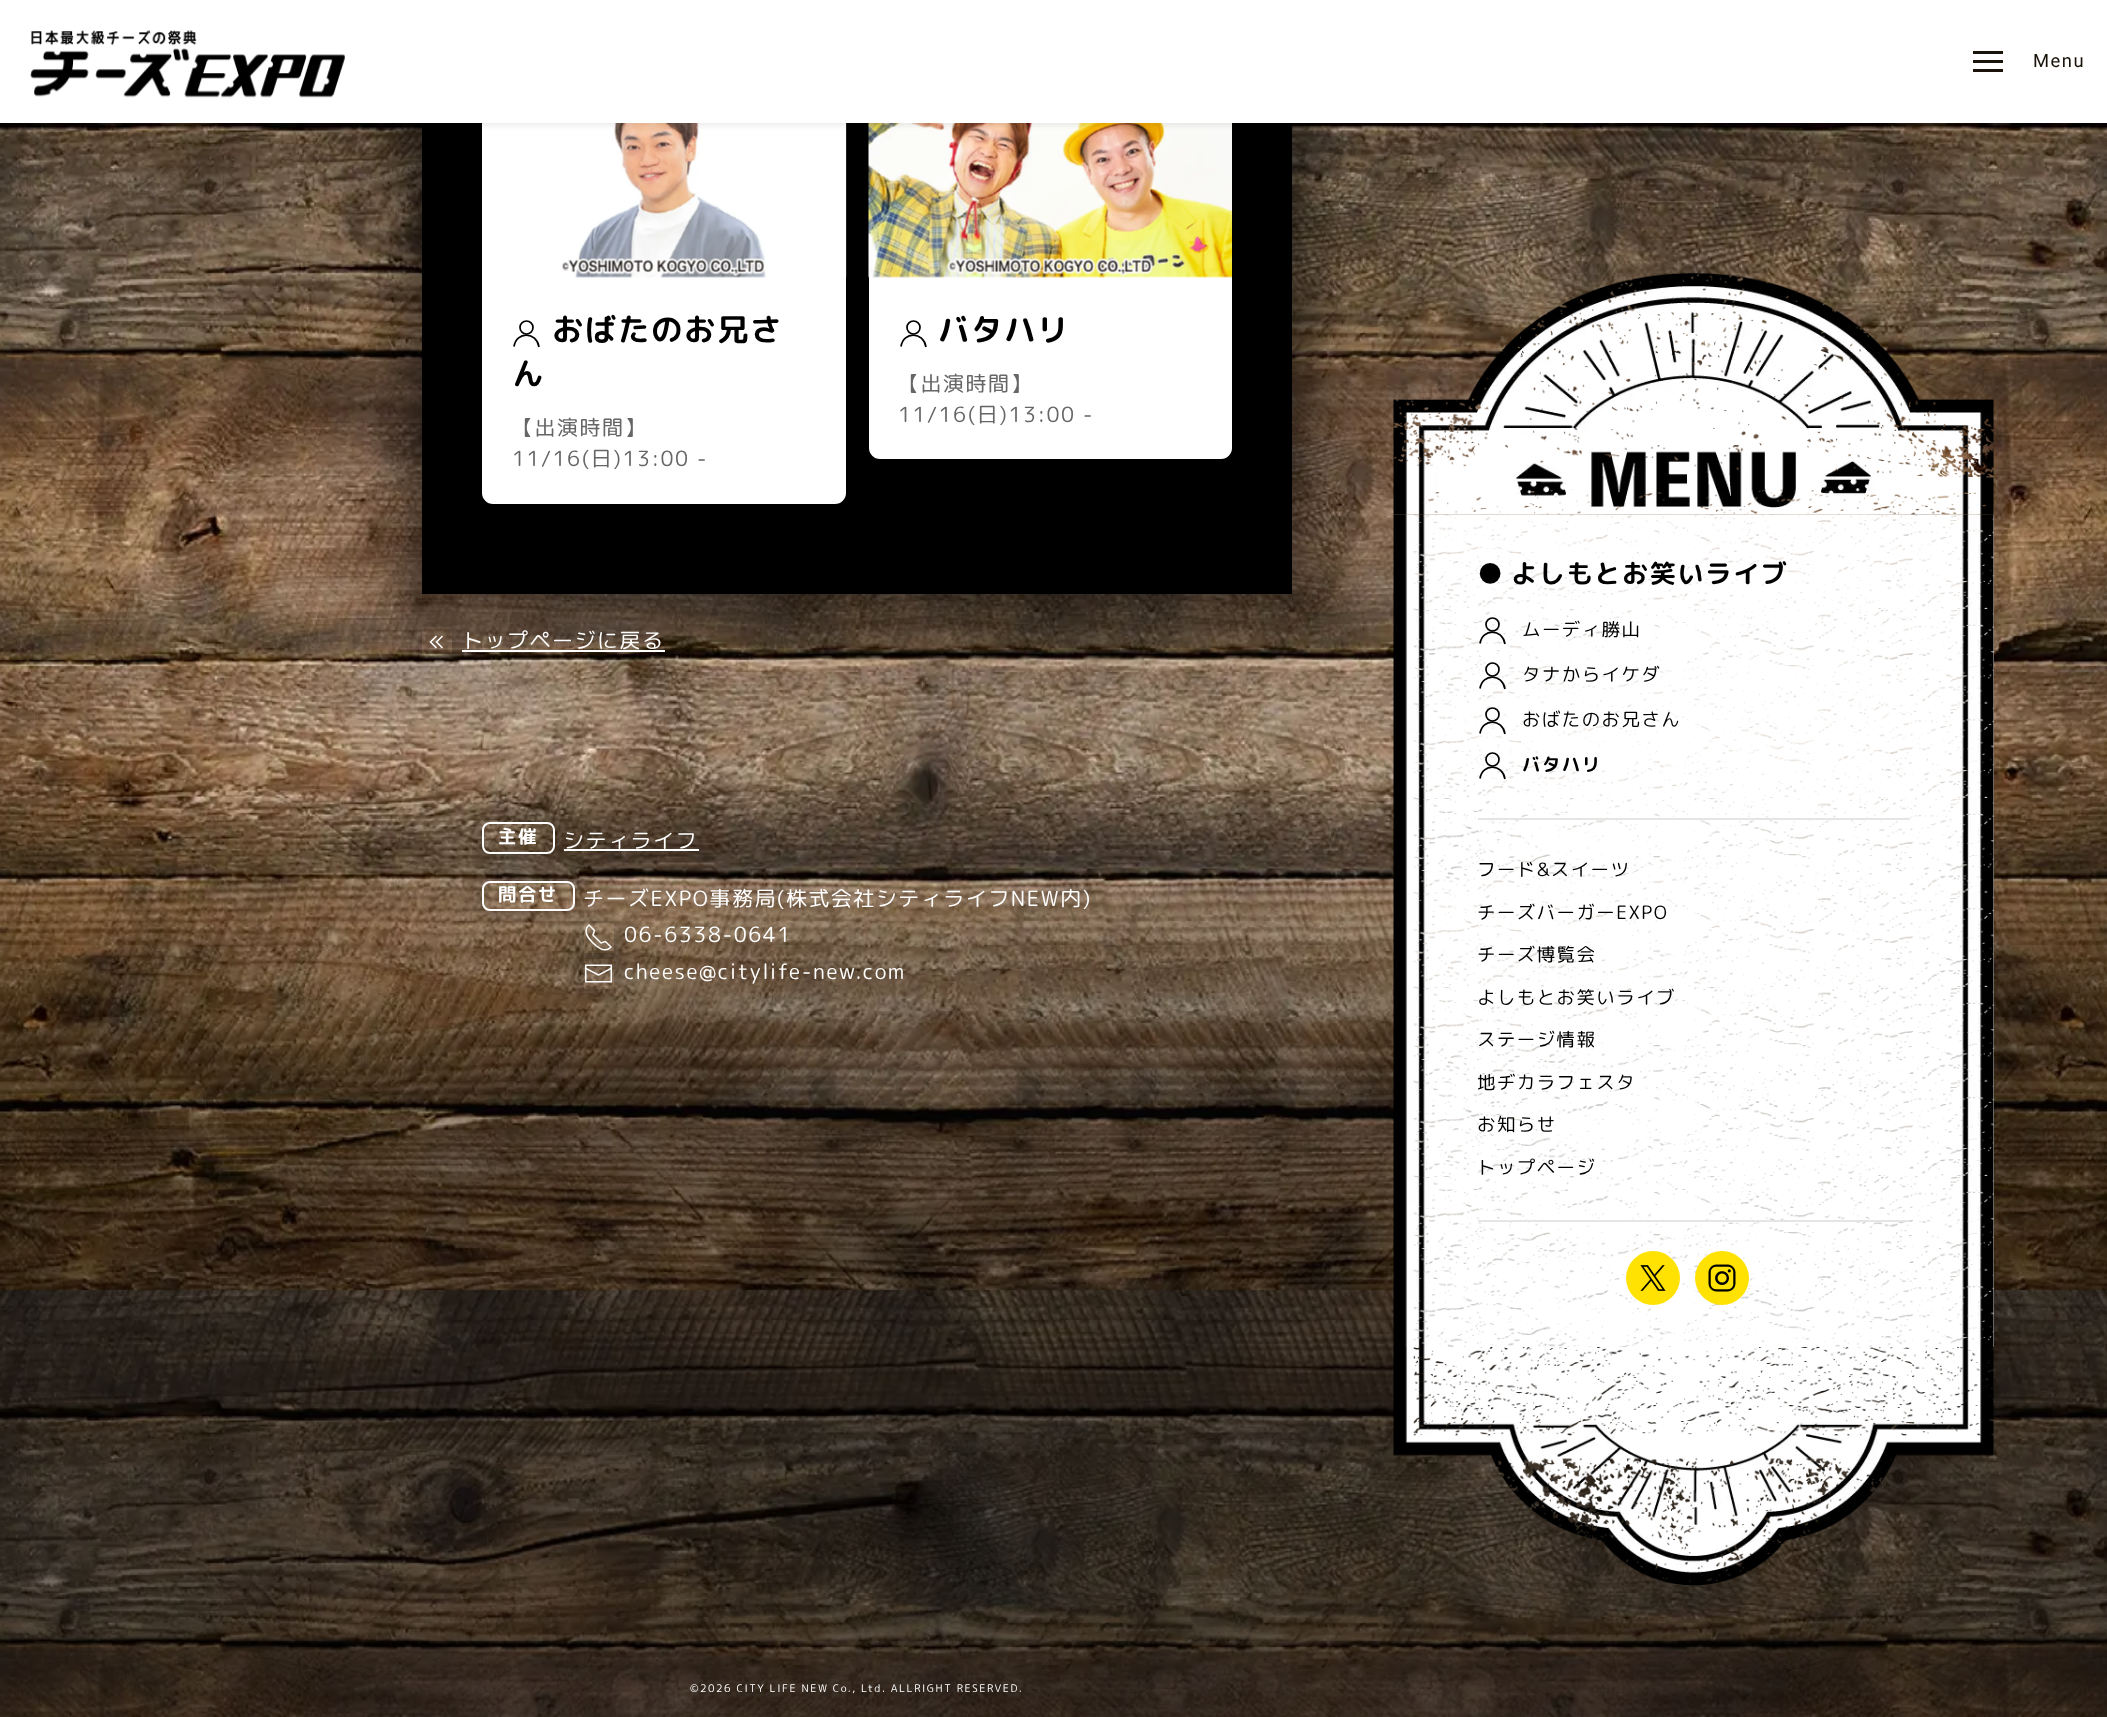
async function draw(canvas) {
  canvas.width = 2107;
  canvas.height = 1717;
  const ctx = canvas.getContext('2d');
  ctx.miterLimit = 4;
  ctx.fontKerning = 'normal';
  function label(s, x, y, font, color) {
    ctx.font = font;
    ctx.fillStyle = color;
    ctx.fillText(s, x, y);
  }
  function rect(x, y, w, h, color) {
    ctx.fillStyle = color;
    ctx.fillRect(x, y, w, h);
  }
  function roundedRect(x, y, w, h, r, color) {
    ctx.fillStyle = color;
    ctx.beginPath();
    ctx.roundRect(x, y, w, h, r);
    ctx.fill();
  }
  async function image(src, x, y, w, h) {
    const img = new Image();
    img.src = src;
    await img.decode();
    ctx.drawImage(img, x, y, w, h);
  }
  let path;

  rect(0, 0, 2107, 1717, '#fff');
  await image('assets/img1.png', 0, 123, 2107, 1594);
  ctx.fillStyle = '#00000080';
  ctx.filter = 'blur(22.5px)';
  ctx.beginPath();
  ctx.rect(399, -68, 915, 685);
  ctx.fill();
  ctx.filter = 'none';
  rect(422, 123, 870, 471, '#000');
  roundedRect(482, 74, 364, 430, 11, '#fff');
  await image('assets/img3.png', 482, 123, 365, 155);
  roundedRect(869, 74, 363, 385, 11, '#fff');
  await image('assets/img4.png', 868, 123, 364, 155);
  ctx.fillStyle = '#00000012';
  ctx.filter = 'blur(2.5px)';
  ctx.beginPath();
  ctx.rect(0, 3, 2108, 123);
  ctx.fill();
  ctx.filter = 'none';
  rect(0, 0, 2107, 123, '#fff');
  await image('assets/img2.png', 30, 30, 315, 68);
  rect(1973, 51, 30, 3, '#1a130b');
  rect(1973, 60, 30, 3, '#1a130b');
  rect(1973, 69, 30, 3, '#1a130b');
  ctx.letterSpacing = '1.5px';
  label('Menu', 2033, 67, '18.4px Roboto', '#1a130b');
  ctx.beginPath();
  ctx.arc(526.5, 327.5, 6.5, 0, 2 * Math.PI);
  ctx.strokeStyle = '#000';
  ctx.lineWidth = 1.7;
  ctx.stroke();
  path = new Path2D('M514 346.5C516.5 331 536.5 331.5 539 347');
  ctx.stroke(path);
  label('おばたのお兄さ', 552, 341, 'bold 31.5px "Rounded Mplus 1c Bold"', '#000');
  label('ん', 512, 385, 'bold 31.5px "Rounded Mplus 1c Bold"', '#000');
  label('【出演時間】', 512, 435, '21px "Rounded Mplus 1c"', '#666');
  label('11/16(日)13:00 -', 512, 466, '21px "Rounded Mplus 1c"', '#666');
  ctx.beginPath();
  ctx.arc(913.5, 327.5, 6.5, 0, 2 * Math.PI);
  ctx.stroke();
  path = new Path2D('M901 346.5C903.5 331 923.5 331.5 926 347');
  ctx.stroke(path);
  label('バタハリ', 938, 341, 'bold 31.5px "Rounded Mplus 1c Bold"', '#000');
  label('【出演時間】', 898, 391, '21px "Rounded Mplus 1c"', '#666');
  label('11/16(日)13:00 -', 898, 422, '21px "Rounded Mplus 1c"', '#666');
  ctx.save();
  path = new Path2D('M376 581H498V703H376ZM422 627H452V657H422Z');
  ctx.clip(path, 'evenodd');
  ctx.fillStyle = '#00000080';
  ctx.filter = 'blur(15px)';
  ctx.beginPath();
  ctx.rect(422, 627, 30, 30);
  ctx.fill();
  ctx.filter = 'none';
  ctx.restore();
  await image('assets/img5.png', 429, 635, 14, 14);
  label('トップページに戻る', 462, 648, '21px "Rounded Mplus 1c"', '#fff');
  rect(462, 650, 203, 2, '#fff');
  ctx.save();
  path = new Path2D('M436 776H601V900H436ZM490 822H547C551.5 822 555 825.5 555 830V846C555 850.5 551.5 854 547 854H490C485.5 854 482 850.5 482 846V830C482 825.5 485.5 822 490 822Z');
  ctx.clip(path, 'evenodd');
  ctx.fillStyle = '#00000080';
  ctx.filter = 'blur(15px)';
  ctx.beginPath();
  ctx.roundRect(482, 822, 73, 32, 8);
  ctx.fill();
  ctx.filter = 'none';
  ctx.restore();
  ctx.beginPath();
  ctx.roundRect(483, 823, 71, 30, 7);
  ctx.strokeStyle = '#fff';
  ctx.lineWidth = 2;
  ctx.stroke();
  label('主催', 498, 843, 'bold 18.4px "Rounded Mplus 1c Bold"', '#fff');
  label('シティライフ', 563, 848, '21px "Rounded Mplus 1c"', '#fff');
  rect(564, 849, 135, 2, '#fff');
  ctx.save();
  path = new Path2D('M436 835H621V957H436ZM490 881H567C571.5 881 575 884.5 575 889V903C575 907.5 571.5 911 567 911H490C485.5 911 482 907.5 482 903V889C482 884.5 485.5 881 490 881Z');
  ctx.clip(path, 'evenodd');
  ctx.fillStyle = '#00000080';
  ctx.filter = 'blur(15px)';
  ctx.beginPath();
  ctx.roundRect(482, 881, 93, 30, 8);
  ctx.fill();
  ctx.filter = 'none';
  ctx.restore();
  ctx.beginPath();
  ctx.roundRect(483, 882, 91, 28, 7);
  ctx.stroke();
  label('問合せ', 498, 901, 'bold 18.4px "Rounded Mplus 1c Bold"', '#fff');
  label('チーズEXPO事務局(株式会社シティライフNEW内)', 583, 906, '21px "Rounded Mplus 1c"', '#fff');
  ctx.save();
  path = new Path2D('M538 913H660V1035H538ZM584 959H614V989H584Z');
  ctx.clip(path, 'evenodd');
  ctx.fillStyle = '#00000080';
  ctx.filter = 'blur(15px)';
  ctx.beginPath();
  ctx.rect(584, 959, 30, 30);
  ctx.fill();
  ctx.filter = 'none';
  ctx.restore();
  ctx.save();
  path = new Path2D('M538 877H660V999H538ZM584 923H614V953H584Z');
  ctx.clip(path, 'evenodd');
  ctx.fillStyle = '#00000080';
  ctx.filter = 'blur(15px)';
  ctx.beginPath();
  ctx.rect(584, 923, 30, 30);
  ctx.fill();
  ctx.filter = 'none';
  ctx.restore();
  await image('assets/img6.png', 585, 964, 27, 19);
  path = new Path2D('M593 943C597.5 947.5 605 953.5 611 947L605.5 941.5L601 943L593 935L594.5 930.5L589 925C582.5 931 588 938 593 943');
  ctx.lineWidth = 1.5;
  ctx.stroke(path);
  label('06-6338-0641', 624, 942, '21px "Rounded Mplus 1c"', '#fff');
  label('cheese@citylife-new.com', 624, 979, '21px "Rounded Mplus 1c"', '#fff');
  label('©2026 CITY LIFE NEW Co., Ltd. ALLRIGHT RESERVED.', 690, 1692, '10.5px "Rounded Mplus 1c"', '#fff');
  await image('assets/img7.png', 1393, 272, 601, 243);
  rect(1413, 515, 581, 832, '#ffffffbf');
  await image('assets/img8.png', 1393, 514, 601, 833);
  label('●', 1477, 583, 'bold 26.25px "Rounded Mplus 1c Bold"', '#000');
  label('よしもとお笑いライブ', 1511, 583, 'bold 26.25px "Rounded Mplus 1c Bold"', '#000');
  ctx.beginPath();
  ctx.arc(1492.5, 624.5, 6.5, 0, 2 * Math.PI);
  ctx.strokeStyle = '#000';
  ctx.lineWidth = 1.7;
  ctx.stroke();
  path = new Path2D('M1480 643.5C1482.5 628 1502.5 628.5 1505 644');
  ctx.stroke(path);
  label('ムーディ勝山', 1522, 636, '18.4px "Rounded Mplus 1c"', '#000');
  ctx.beginPath();
  ctx.arc(1492.5, 669.5, 6.5, 0, 2 * Math.PI);
  ctx.stroke();
  path = new Path2D('M1480 688.5C1482.5 673 1502.5 673.5 1505 689');
  ctx.stroke(path);
  label('タナからイケダ', 1522, 681, '18.4px "Rounded Mplus 1c"', '#000');
  ctx.beginPath();
  ctx.arc(1492.5, 714.5, 6.5, 0, 2 * Math.PI);
  ctx.stroke();
  path = new Path2D('M1480 733.5C1482.5 718 1502.5 718.5 1505 734');
  ctx.stroke(path);
  label('おばたのお兄さん', 1522, 726, '18.4px "Rounded Mplus 1c"', '#000');
  ctx.beginPath();
  ctx.arc(1492.5, 759.5, 6.5, 0, 2 * Math.PI);
  ctx.stroke();
  path = new Path2D('M1480 778.5C1482.5 763 1502.5 763.5 1505 779');
  ctx.stroke(path);
  label('バタハリ', 1522, 771, 'bold 18.4px "Rounded Mplus 1c Bold"', '#000');
  rect(1478, 818, 432, 2, '#e5e5e5');
  label('フード&スイーツ', 1477, 876, '18.4px "Rounded Mplus 1c"', '#000');
  label('チーズバーガーEXPO', 1477, 919, '18.4px "Rounded Mplus 1c"', '#000');
  label('チーズ博覧会', 1477, 961, '18.4px "Rounded Mplus 1c"', '#000');
  label('よしもとお笑いライブ', 1477, 1004, '18.4px "Rounded Mplus 1c"', '#000');
  label('ステージ情報', 1477, 1046, '18.4px "Rounded Mplus 1c"', '#000');
  label('地ヂカラフェスタ', 1477, 1089, '18.4px "Rounded Mplus 1c"', '#000');
  label('お知らせ', 1477, 1131, '18.4px "Rounded Mplus 1c"', '#000');
  label('トップページ', 1477, 1174, '18.4px "Rounded Mplus 1c"', '#000');
  rect(1478, 1220, 432, 2, '#e5e5e5');
  ctx.fillStyle = '#ffe102';
  ctx.beginPath();
  ctx.arc(1653, 1278, 27, 0, 2 * Math.PI);
  ctx.fill();
  await image('assets/img9.png', 1640, 1265, 26, 26);
  ctx.beginPath();
  ctx.arc(1722, 1278, 27, 0, 2 * Math.PI);
  ctx.fill();
  await image('assets/img10.png', 1708, 1264, 28, 28);
  await image('assets/img11.png', 1393, 1347, 601, 239);
}

draw(document.querySelector('canvas'));
